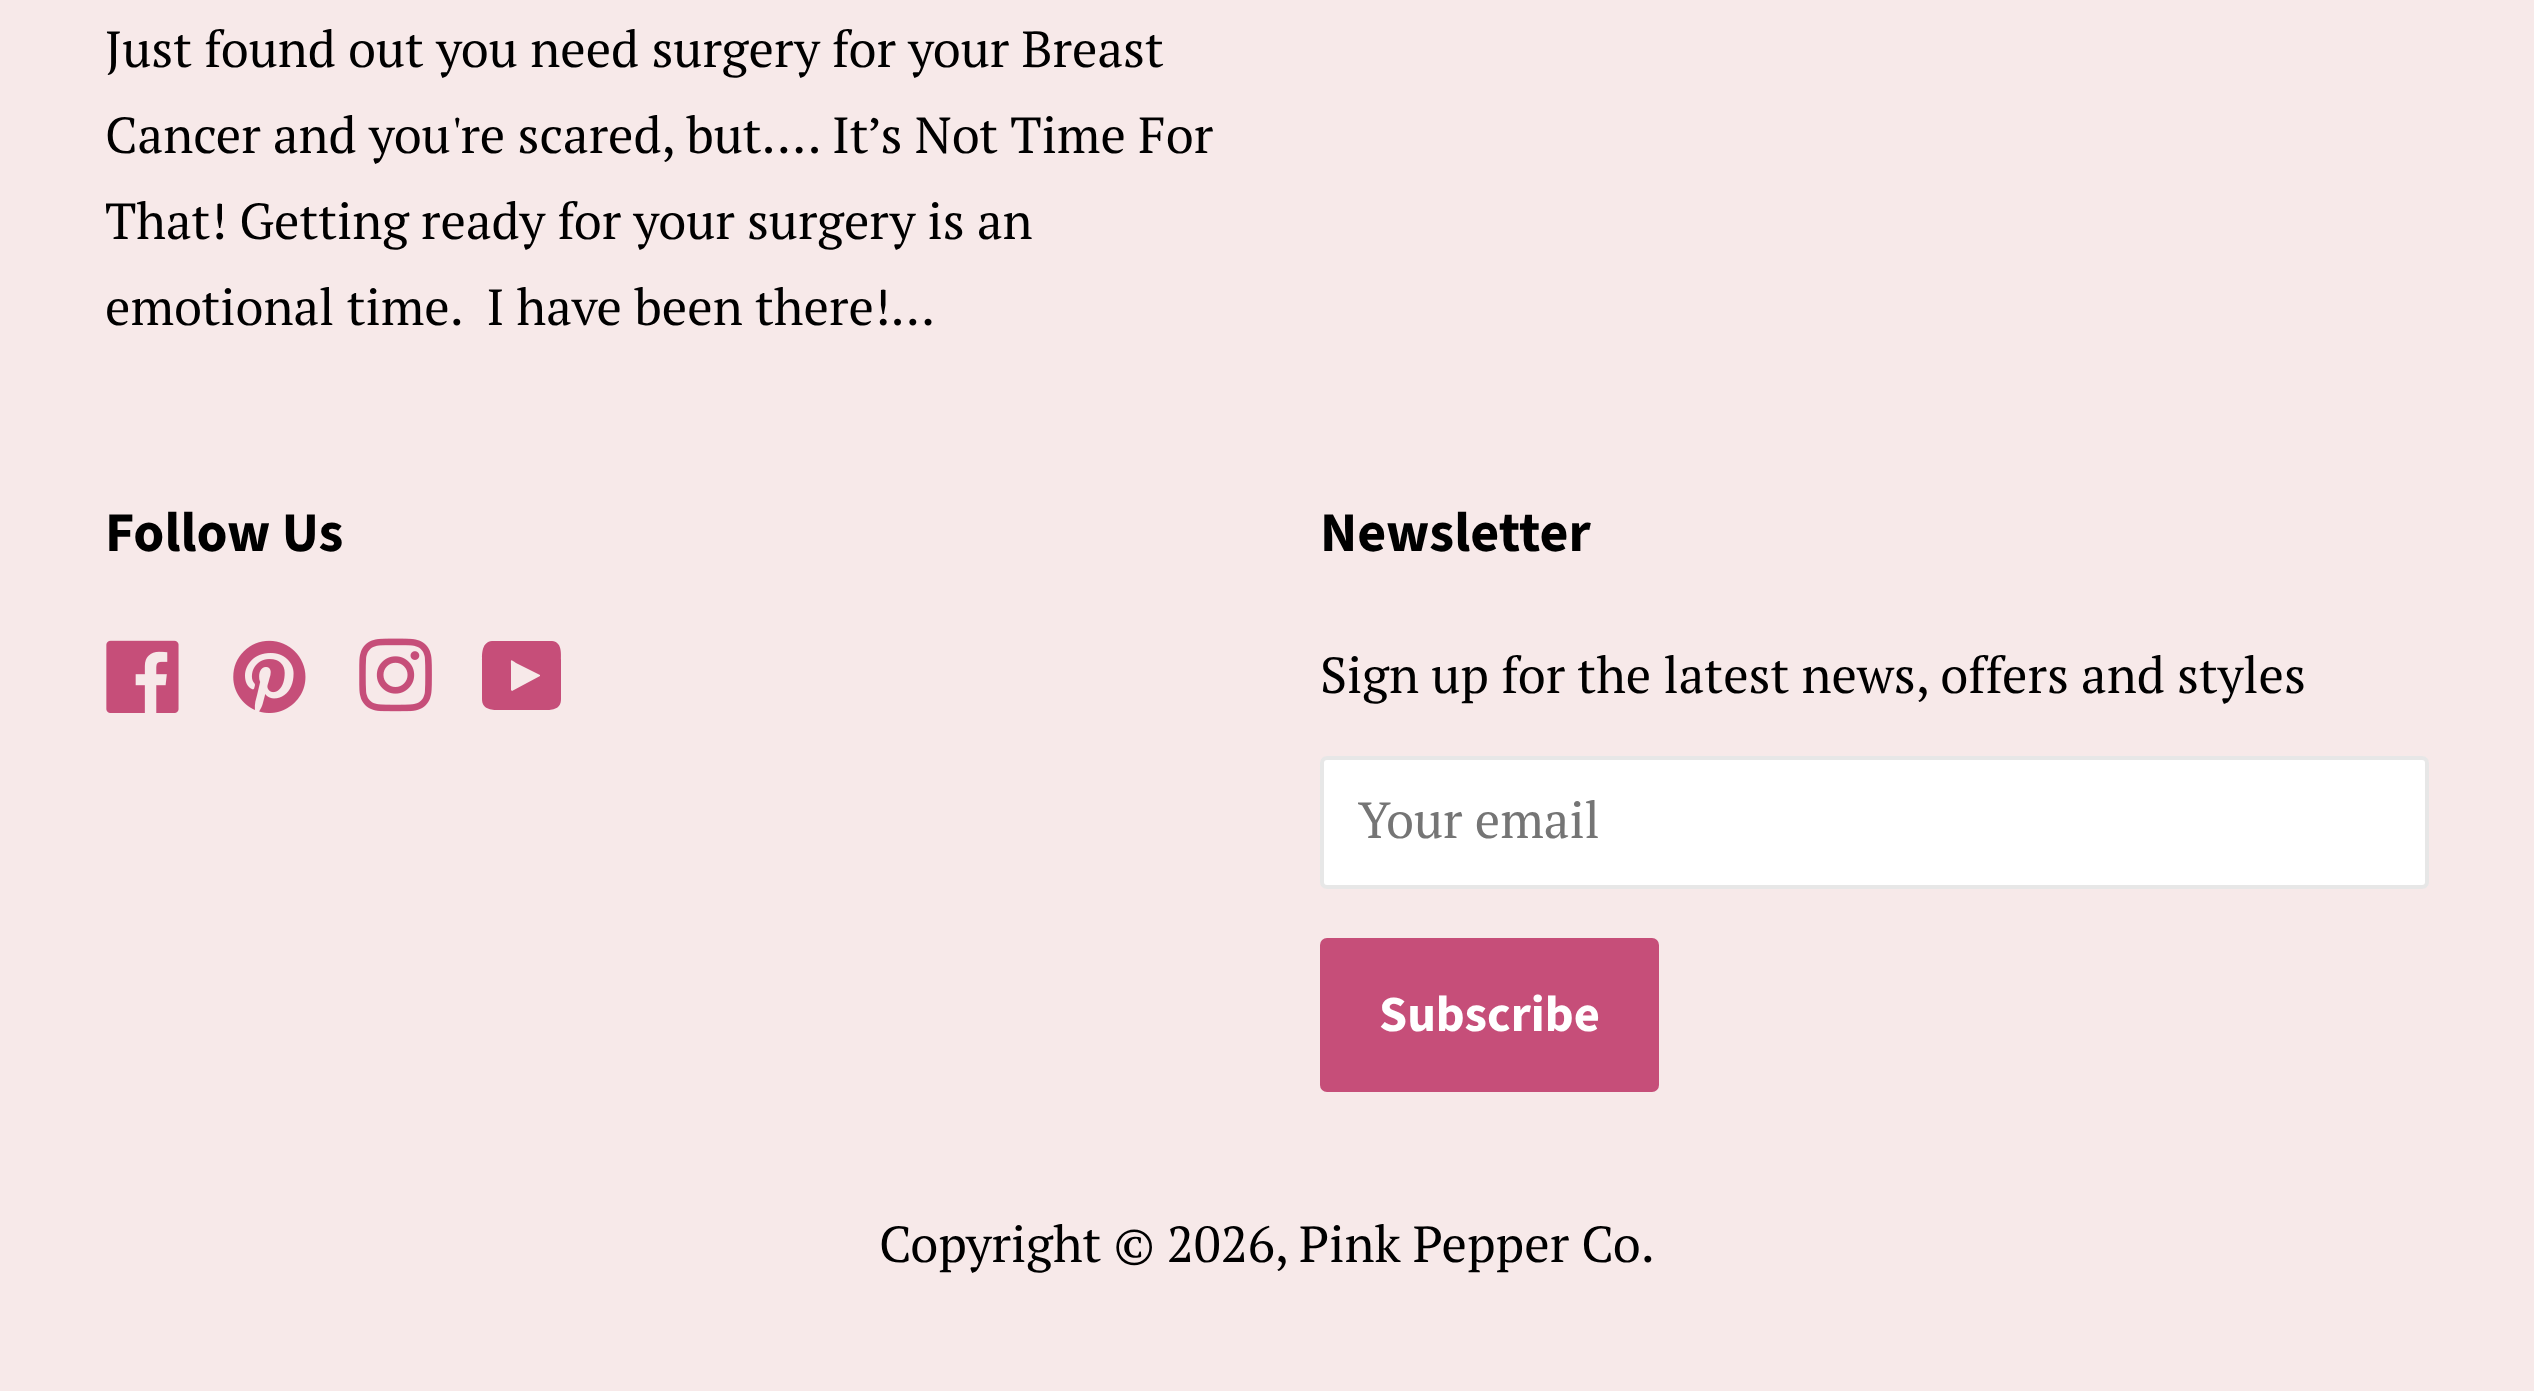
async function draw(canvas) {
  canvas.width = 2534;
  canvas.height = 1391;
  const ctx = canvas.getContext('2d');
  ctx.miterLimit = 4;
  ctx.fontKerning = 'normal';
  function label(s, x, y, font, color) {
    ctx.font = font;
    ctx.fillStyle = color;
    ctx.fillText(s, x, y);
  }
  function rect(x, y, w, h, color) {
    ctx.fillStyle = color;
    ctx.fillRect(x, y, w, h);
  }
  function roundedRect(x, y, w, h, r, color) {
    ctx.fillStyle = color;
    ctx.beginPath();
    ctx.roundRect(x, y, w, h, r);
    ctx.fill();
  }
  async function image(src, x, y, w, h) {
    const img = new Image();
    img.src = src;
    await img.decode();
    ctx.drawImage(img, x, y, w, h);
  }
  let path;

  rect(0, 0, 2534, 1391, '#f7e9e9');
  label('Just found out you need surgery for your Breast', 105, 67, '50.6px PT Serif', '#000');
  label('Cancer and you\'re scared, but…. It’s Not Time For', 105, 153, '50.6px PT Serif', '#000');
  label('That! Getting ready for your surgery is an', 105, 239, '50.6px PT Serif', '#000');
  label('emotional time.  I have been there!...', 105, 325, '50.6px PT Serif', '#000');
  label('Follow Us', 105, 551, 'bold 56px Source Sans Pro', '#000');
  await image('assets/img1.png', 106, 640, 73, 73);
  await image('assets/img2.png', 233, 640, 73, 73);
  await image('assets/img3.png', 359, 638, 73, 74);
  ctx.fillStyle = '#c64e79';
  path = new Path2D('M482 699C482 711 494 710 503 710H541C550 710 561 711 561 699V660C561 653 562 642 552 641H492C482 642 482 653 482 660ZM511 690V666C511 659 510 659 516 663L540 675V676L512 691Z');
  ctx.fill(path);
  label('Newsletter', 1320, 551, 'bold 56px Source Sans Pro', '#000');
  label('Sign up for the latest news, offers and styles', 1320, 693, '50.6px PT Serif', '#000');
  roundedRect(1320, 756, 1109, 133, 7, '#fff');
  ctx.beginPath();
  ctx.roundRect(1322, 758, 1105, 129, 5);
  ctx.strokeStyle = '#60606026';
  ctx.lineWidth = 4;
  ctx.stroke();
  label('Your email', 1358, 838, '50.6px PT Serif', '#757575');
  roundedRect(1320, 938, 339, 154, 7, '#c64e79');
  label('Subscribe', 1379, 1031, 'bold 50.6px Source Sans Pro', '#fff');
  label('Copyright © 2026,', 879, 1262, '50.6px PT Serif', '#000');
  label('Pink Pepper Co.', 1299, 1262, '50.6px PT Serif', '#000');
}

draw(document.querySelector('canvas'));
